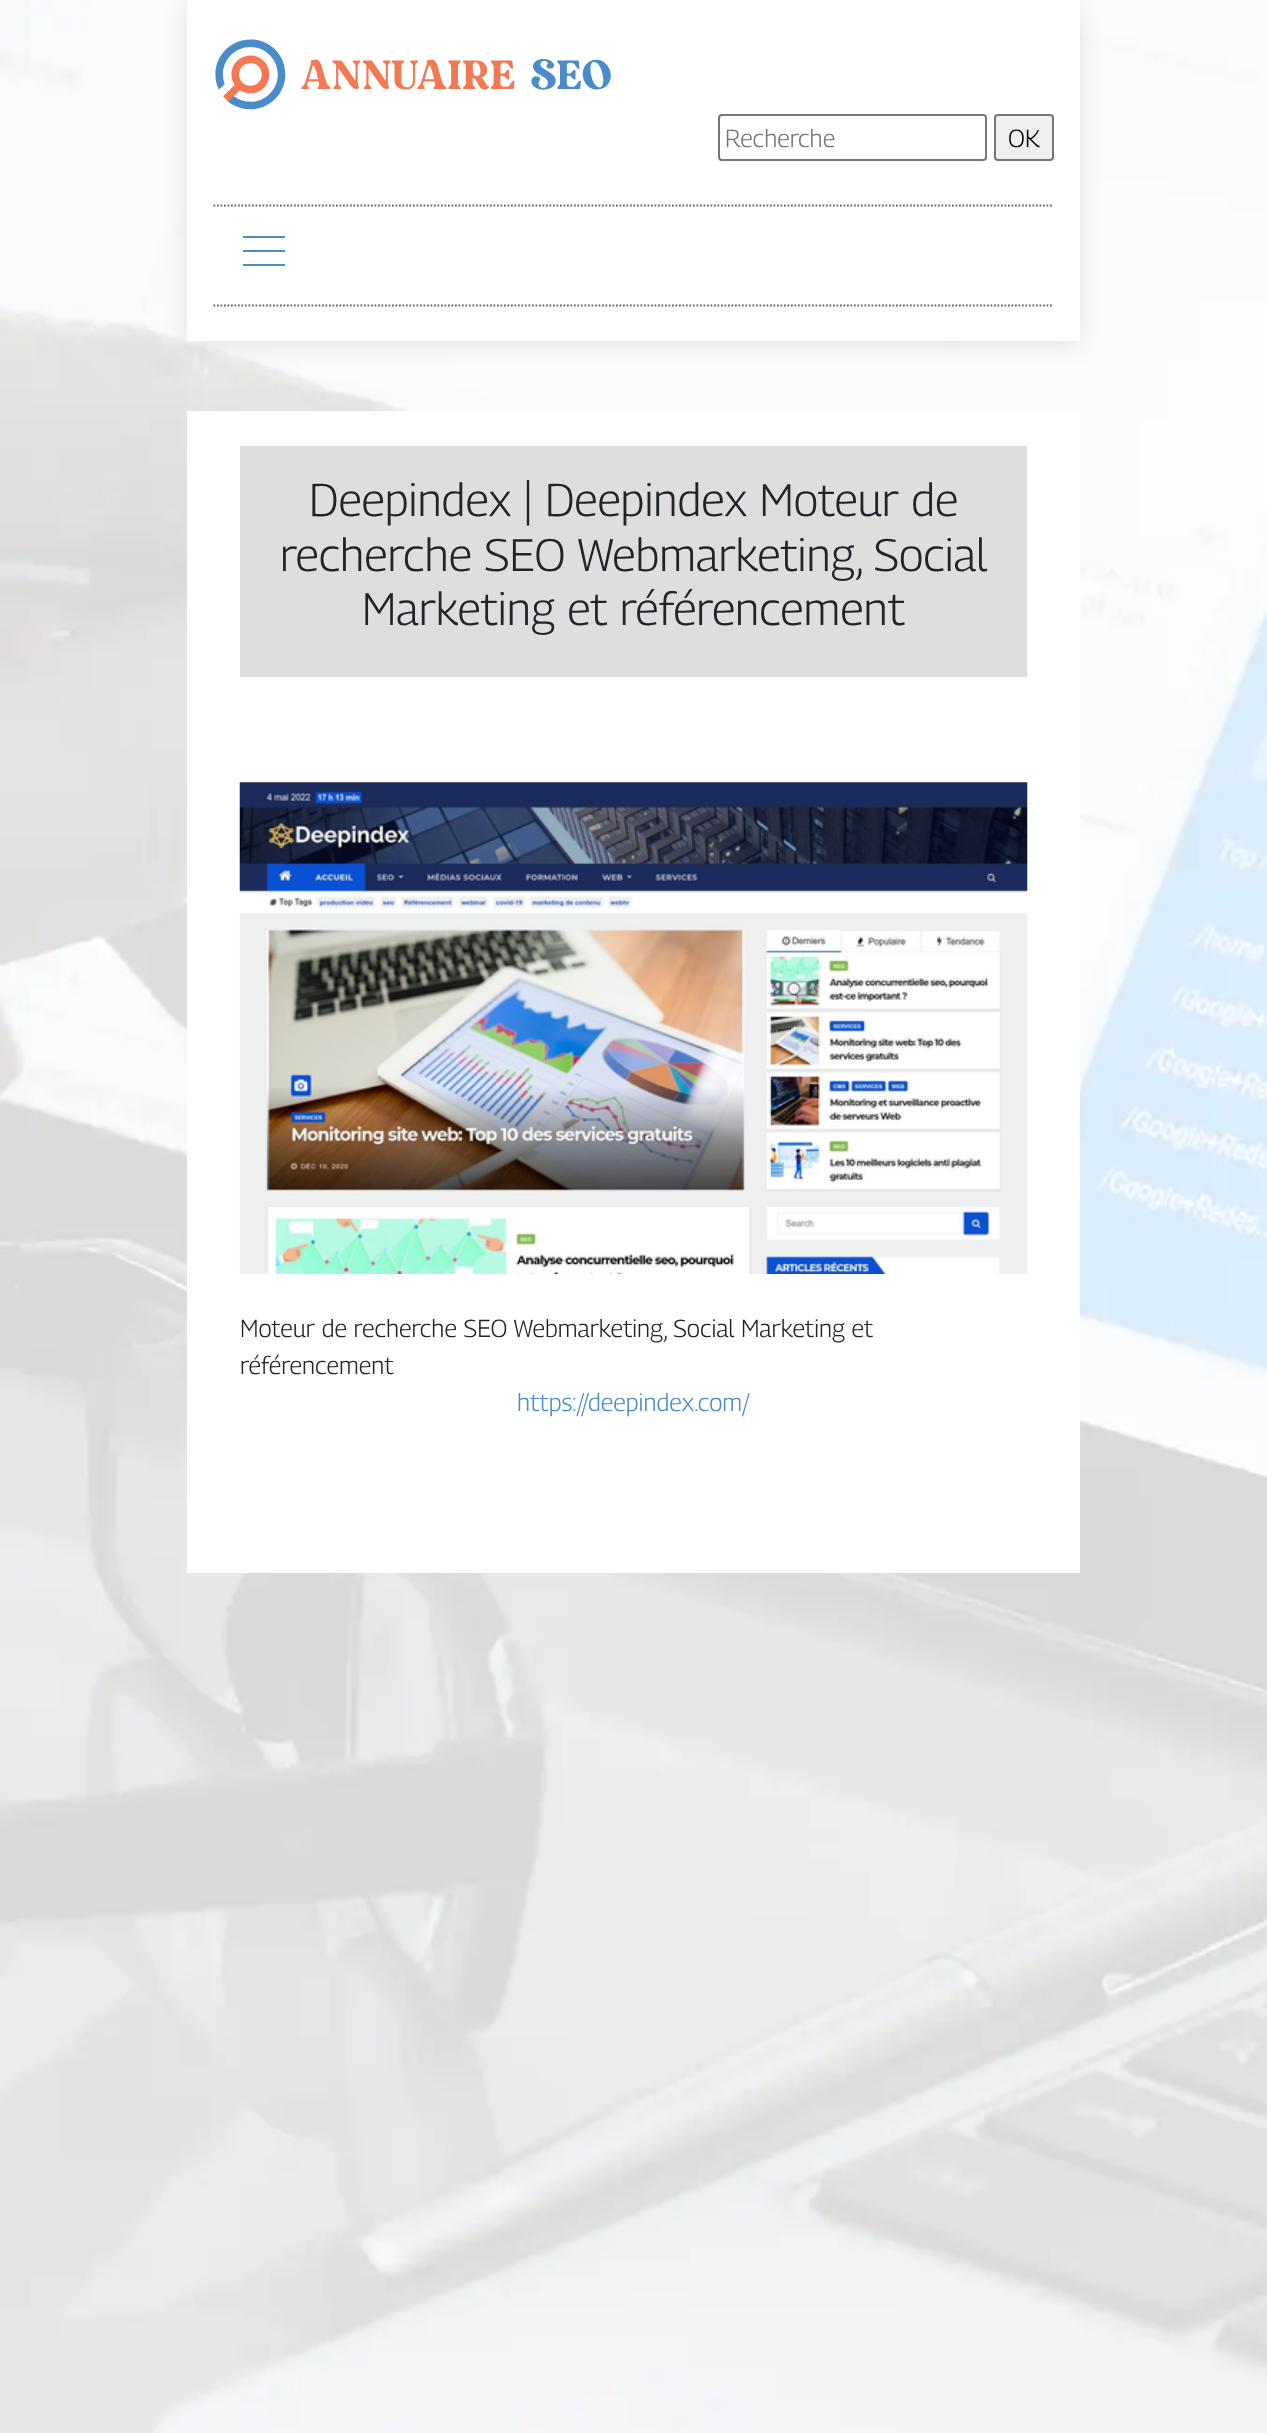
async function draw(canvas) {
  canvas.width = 1267;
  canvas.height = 2433;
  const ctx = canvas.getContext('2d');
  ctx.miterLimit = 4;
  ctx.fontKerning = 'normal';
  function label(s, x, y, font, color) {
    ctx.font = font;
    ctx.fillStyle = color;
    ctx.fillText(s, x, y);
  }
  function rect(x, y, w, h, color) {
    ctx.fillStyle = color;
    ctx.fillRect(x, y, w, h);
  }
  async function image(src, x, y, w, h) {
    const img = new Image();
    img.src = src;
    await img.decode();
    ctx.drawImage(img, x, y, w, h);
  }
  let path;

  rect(0, 0, 1267, 2433, '#fff');
  await image('assets/img1.png', 0, 0, 1267, 2433);
  ctx.fillStyle = '#0000001a';
  ctx.filter = 'blur(11.5px)';
  ctx.beginPath();
  ctx.rect(187, 4, 893, 341);
  ctx.fill();
  ctx.filter = 'none';
  rect(187, 0, 893, 341, '#fff');
  await image('assets/img2.png', 215, 39, 396, 71);
  ctx.beginPath();
  ctx.roundRect(719, 115, 267, 45, 3);
  ctx.strokeStyle = '#767676';
  ctx.lineWidth = 2;
  ctx.stroke();
  label('Recherche', 725, 147, '100 24.5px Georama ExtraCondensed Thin', '#757575');
  ctx.fillStyle = '#efefef';
  ctx.beginPath();
  ctx.roundRect(995, 115, 58, 45, 3);
  ctx.fill();
  ctx.stroke();
  label('OK', 1008, 147, '100 24.5px Georama ExtraCondensed Thin', '#000');
  path = new Path2D('M213.5 205.5H1053.5');
  ctx.strokeStyle = '#666';
  ctx.lineWidth = 1.8;
  ctx.setLineDash([1.75, 1.75]);
  ctx.stroke(path);
  path = new Path2D('M213.5 305.5H1053.5');
  ctx.stroke(path);
  rect(243, 236, 42, 2, '#4a8bcc');
  rect(243, 250, 42, 2, '#4a8bcc');
  rect(243, 264, 42, 2, '#4a8bcc');
  rect(187, 411, 893, 1162, '#fff');
  rect(240, 446, 787, 231, '#dedede');
  label('Deepindex | Deepindex Moteur de', 309, 516, '100 45.5px Georama ExtraCondensed Thin', '#212529');
  label('recherche SEO Webmarketing, Social', 280, 571, '100 45.5px Georama ExtraCondensed Thin', '#212529');
  label('Marketing et référencement', 362, 625, '100 45.5px Georama ExtraCondensed Thin', '#212529');
  await image('assets/img3.png', 239, 782, 789, 492);
  label('Moteur de recherche SEO Webmarketing, Social Marketing et', 240, 1337, '100 24.5px Georama ExtraCondensed Thin', '#212529');
  label('référencement', 240, 1374, '100 24.5px Georama ExtraCondensed Thin', '#212529');
  label('https://deepindex.com/', 517, 1411, '100 24.5px Georama ExtraCondensed Thin', '#4a8bcc');
}

draw(document.querySelector('canvas'));
